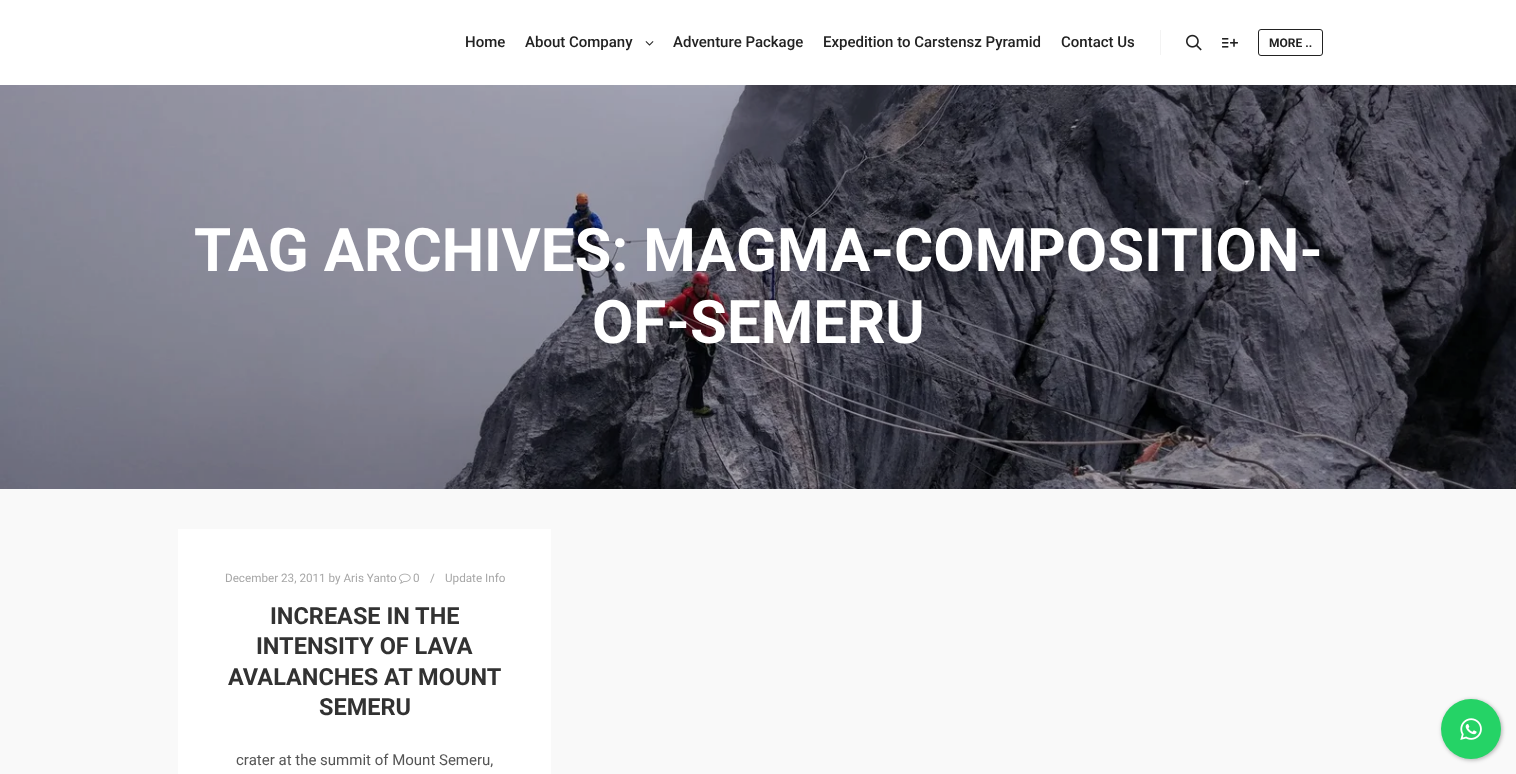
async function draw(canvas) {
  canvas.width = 1516;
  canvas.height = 774;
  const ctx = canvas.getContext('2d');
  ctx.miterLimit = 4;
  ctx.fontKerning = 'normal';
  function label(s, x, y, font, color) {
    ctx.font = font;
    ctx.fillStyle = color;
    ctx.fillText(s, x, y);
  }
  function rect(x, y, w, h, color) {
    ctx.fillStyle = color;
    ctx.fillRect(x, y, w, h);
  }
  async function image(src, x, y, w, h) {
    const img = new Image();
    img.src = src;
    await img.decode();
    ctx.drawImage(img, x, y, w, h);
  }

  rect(0, 0, 1516, 774, '#f9f9f9');
  rect(0, 0, 1516, 85, '#fff');
  label('Home', 465, 47, '500 15px Roboto', '#222');
  label('About Company', 525, 47, '500 15px Roboto', '#222');
  await image('assets/img1.png', 645, 41, 9, 5);
  label('Adventure Package', 673, 47, '500 15px Roboto', '#222');
  label('Expedition to Carstensz Pyramid', 823, 47, '500 15px Roboto', '#222');
  label('Contact Us', 1061, 47, '500 15px Roboto', '#222');
  rect(1160, 30, 1, 25, '#f3f3f3');
  await image('assets/img2.png', 1186, 34, 16, 17);
  await image('assets/img3.png', 1222, 38, 16, 10);
  ctx.beginPath();
  ctx.roundRect(1258.5, 29.5, 64, 26, 2.5);
  ctx.strokeStyle = '#222';
  ctx.stroke();
  label('MORE ..', 1269, 47, 'bold 12px Roboto', '#222');
  await image('assets/img4.png', 0, 85, 1516, 404);
  label('TAG ARCHIVES: MAGMA-COMPOSITION-', 194, 271, 'bold 60px Roboto', '#fff');
  label('OF-SEMERU', 592, 343, 'bold 60px Roboto', '#fff');
  rect(178, 529, 373, 245, '#fff');
  label('December 23, 2011 by Aris Yanto', 225, 582, '11.7px Roboto', '#a7a7a7');
  await image('assets/img5.png', 399, 573, 12, 11);
  label('0', 413, 582, '11.7px Roboto', '#a7a7a7');
  label('/', 430, 582, '11.7px Roboto', '#a7a7a7');
  label('Update Info', 445, 582, '11.7px Roboto', '#a7a7a7');
  label('INCREASE IN THE', 270, 624, 'bold 23.5px Roboto', '#323232');
  label('INTENSITY OF LAVA', 256, 654, 'bold 23.5px Roboto', '#323232');
  label('AVALANCHES AT MOUNT', 228, 685, 'bold 23.5px Roboto', '#323232');
  label('SEMERU', 319, 715, 'bold 23.5px Roboto', '#323232');
  label('crater at the summit of Mount Semeru,', 236, 765, '15px Roboto', '#555');
  ctx.fillStyle = '#0000004d';
  ctx.filter = 'blur(2px)';
  ctx.beginPath();
  ctx.roundRect(1442, 700, 60, 60, 30);
  ctx.fill();
  ctx.filter = 'none';
  ctx.fillStyle = '#25d366';
  ctx.beginPath();
  ctx.arc(1471, 729, 30, 0, 2 * Math.PI);
  ctx.fill();
  await image('assets/img6.png', 1460, 718, 22, 22);
}

draw(document.querySelector('canvas'));
